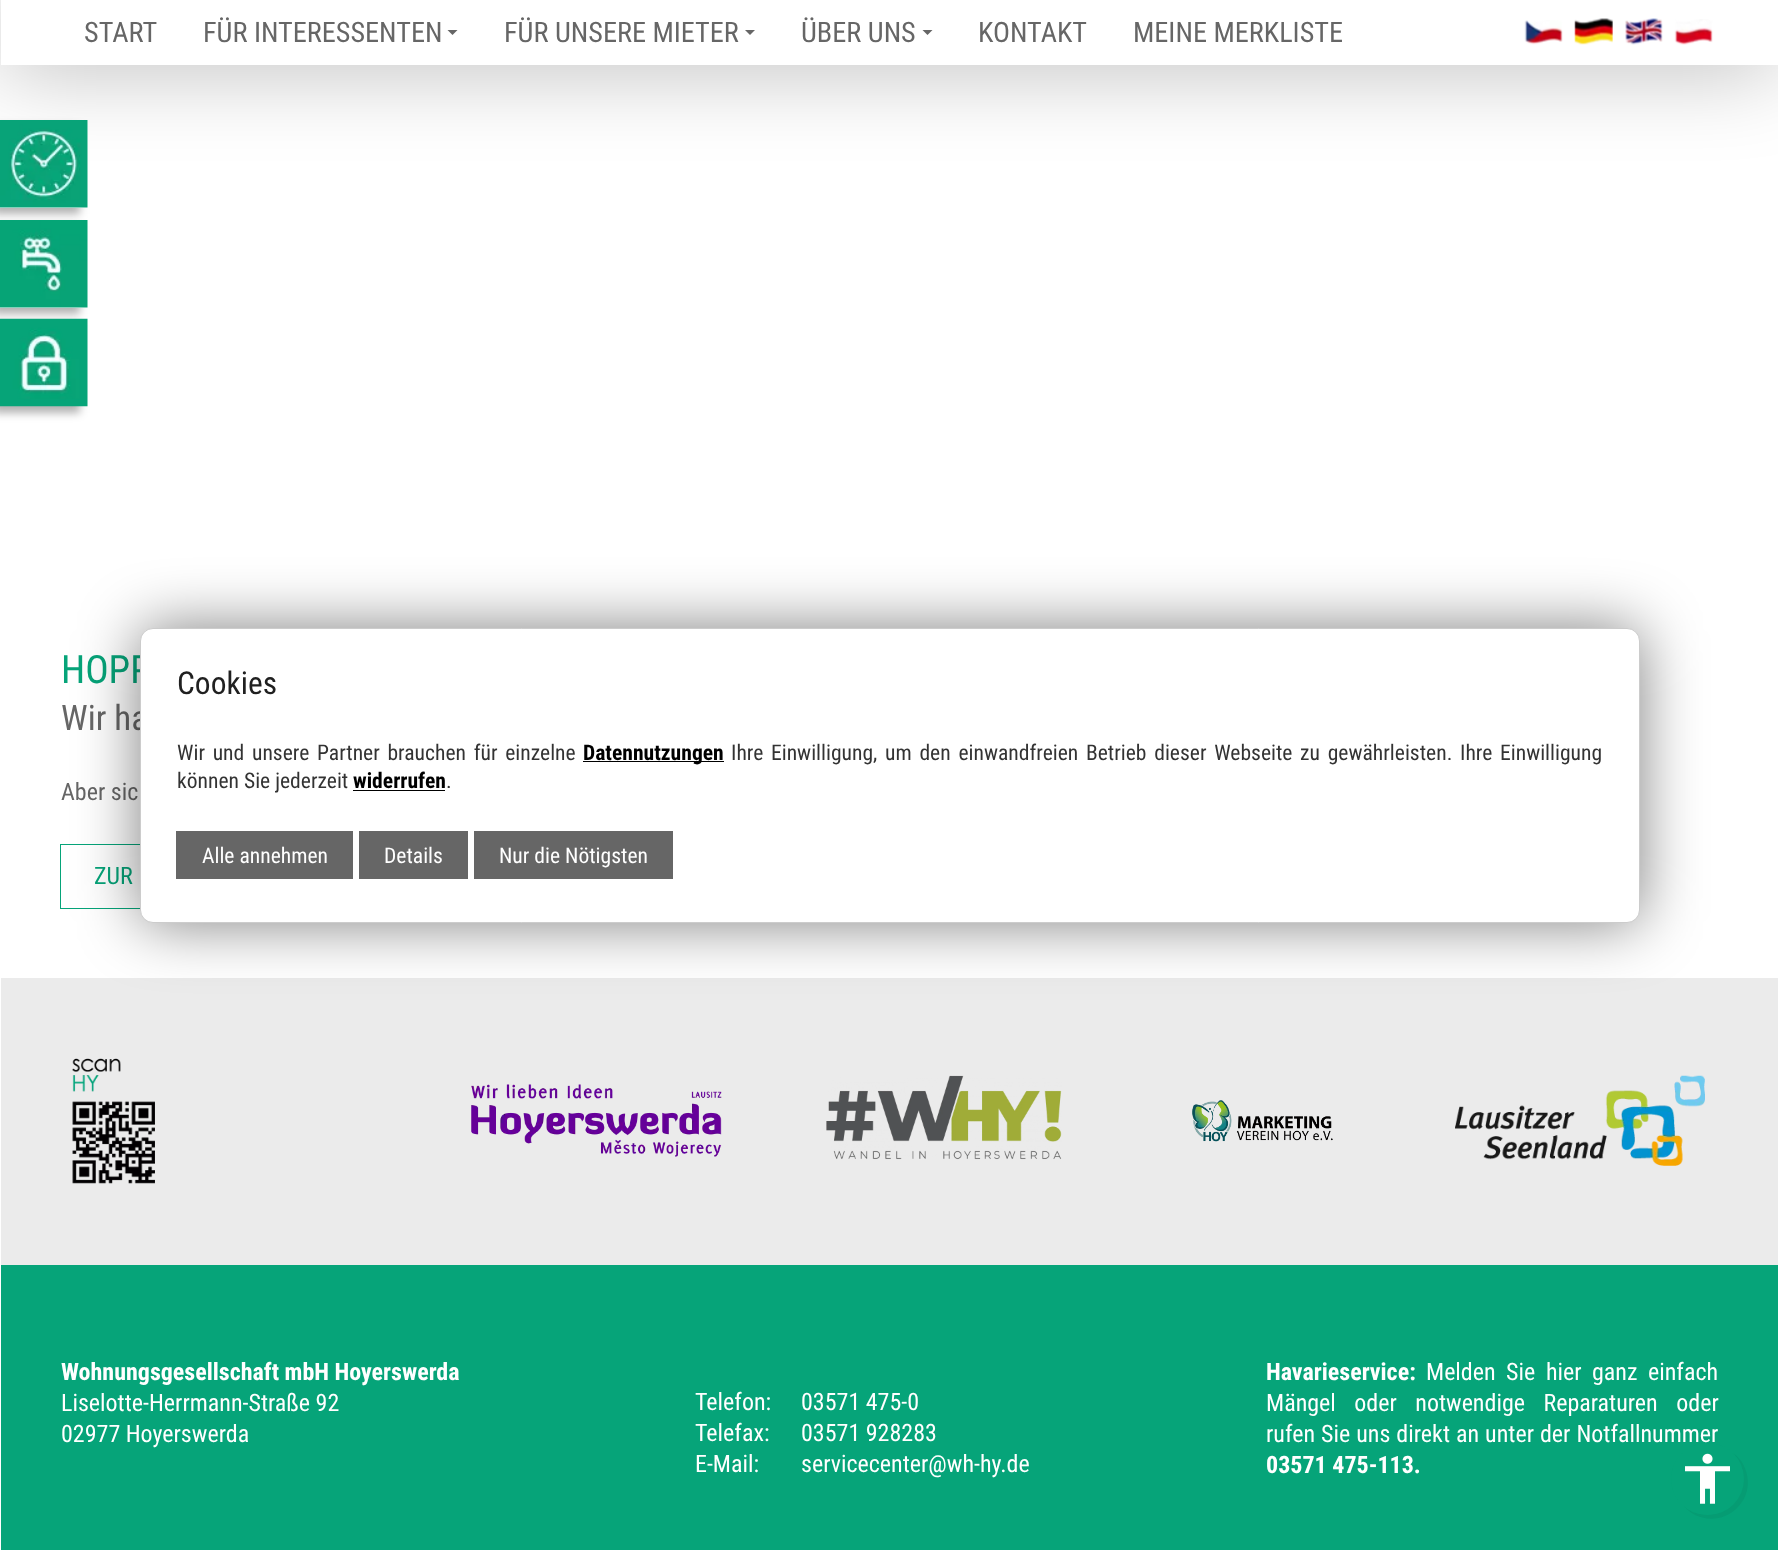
async function draw(canvas) {
  canvas.width = 1778;
  canvas.height = 1550;
  const ctx = canvas.getContext('2d');
  ctx.miterLimit = 4;
  ctx.fontKerning = 'normal';
  function label(s, x, y, font, color) {
    ctx.font = font;
    ctx.fillStyle = color;
    ctx.fillText(s, x, y);
  }
  function rect(x, y, w, h, color) {
    ctx.fillStyle = color;
    ctx.fillRect(x, y, w, h);
  }
  function roundedRect(x, y, w, h, r, color) {
    ctx.fillStyle = color;
    ctx.beginPath();
    ctx.roundRect(x, y, w, h, r);
    ctx.fill();
  }
  async function image(src, x, y, w, h) {
    const img = new Image();
    img.src = src;
    await img.decode();
    ctx.drawImage(img, x, y, w, h);
  }
  let path;

  rect(0, 0, 1778, 1550, '#fff');
  ctx.fillStyle = '#0000004d';
  ctx.filter = 'blur(44px)';
  ctx.beginPath();
  ctx.rect(0, 0, 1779, 65);
  ctx.fill();
  ctx.filter = 'none';
  rect(1, 0, 1777, 65, '#fff');
  label('START', 84, 42, '28.25px Roboto Condensed', '#666');
  label('FÜR INTERESSENTEN', 203, 42, '28.25px Roboto Condensed', '#666');
  path = new Path2D('M447.5 30H457.5L452.5 35Z');
  ctx.fill(path);
  label('FÜR UNSERE MIETER', 504, 42, '28.25px Roboto Condensed', '#666');
  path = new Path2D('M745 30H755L750 35Z');
  ctx.fill(path);
  label('ÜBER UNS', 801, 42, '28.25px Roboto Condensed', '#666');
  path = new Path2D('M922.5 30H932.5L927.5 35Z');
  ctx.fill(path);
  label('KONTAKT', 978, 42, '28.25px Roboto Condensed', '#666');
  label('MEINE MERKLISTE', 1133, 42, '28.25px Roboto Condensed', '#666');
  await image('assets/img1.png', 1524, 20, 39, 25);
  await image('assets/img2.png', 1574, 18, 39, 27);
  await image('assets/img3.png', 1625, 18, 38, 27);
  await image('assets/img4.png', 1674, 19, 39, 26);
  ctx.fillStyle = '#0000004d';
  ctx.filter = 'blur(4px)';
  ctx.beginPath();
  ctx.rect(-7, 126, 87, 88);
  ctx.fill();
  ctx.filter = 'none';
  rect(0, 120, 88, 88, '#fff');
  await image('assets/img5.png', 0, 120, 88, 88);
  ctx.fillStyle = '#0000004d';
  ctx.filter = 'blur(4px)';
  ctx.beginPath();
  ctx.rect(-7, 226, 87, 88);
  ctx.fill();
  ctx.filter = 'none';
  rect(0, 220, 87, 88, '#fff');
  await image('assets/img6.png', 0, 220, 88, 88);
  ctx.fillStyle = '#0000004d';
  ctx.filter = 'blur(4px)';
  ctx.beginPath();
  ctx.rect(-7, 325, 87, 88);
  ctx.fill();
  ctx.filter = 'none';
  await image('assets/img7.png', 0, 318, 88, 89);
  label('HOPP', 61, 683, '39px Roboto Condensed', '#06a479');
  label('Wir ha', 61, 730, '35px Roboto Condensed', '#666');
  label('Aber sic', 61, 800, '24px Roboto Condensed', '#666');
  ctx.strokeStyle = '#06a479';
  ctx.strokeRect(60.5, 844.5, 228, 64);
  label('ZUR', 94, 884, '24px Roboto Condensed', '#06a479');
  rect(1, 978, 1777, 287, '#ebebeb');
  ctx.fillStyle = '#00000080';
  ctx.filter = 'blur(31px)';
  ctx.beginPath();
  ctx.roundRect(140, 628, 1500, 295, 13);
  ctx.fill();
  ctx.filter = 'none';
  ctx.fillStyle = '#fff';
  ctx.beginPath();
  ctx.roundRect(140.5, 628.5, 1499, 294, 12.5);
  ctx.fill();
  ctx.strokeStyle = '#ccc';
  ctx.stroke();
  label('Cookies', 177, 694, '31.5px Roboto Condensed', '#202020');
  ctx.wordSpacing = '2.75px';
  label('Wir und unsere Partner brauchen für einzelne', 177, 760, '21.6px Roboto Condensed', '#333');
  rect(583, 761, 141, 1, '#000');
  ctx.wordSpacing = '0px';
  label('Datennutzungen', 583, 760, 'bold 21.6px Roboto Condensed', '#000');
  ctx.wordSpacing = '2.75px';
  label('Ihre Einwilligung, um den einwandfreien Betrieb dieser Webseite zu gewährleisten. Ihre Einwilligung', 731, 760, '21.6px Roboto Condensed', '#333');
  ctx.wordSpacing = '0px';
  label('können Sie jederzeit', 177, 788, '21.6px Roboto Condensed', '#333');
  label('widerrufen', 353, 788, 'bold 21.6px Roboto Condensed', '#000');
  rect(353, 790, 92, 1, '#000');
  label('.', 446, 788, '21.6px Roboto Condensed', '#333');
  rect(176, 831, 177, 48, '#666');
  label('Alle annehmen', 202, 863, '21.6px Roboto Condensed', '#fff');
  rect(359, 831, 109, 48, '#666');
  label('Details', 384, 863, '21.6px Roboto Condensed', '#fff');
  rect(474, 831, 199, 48, '#666');
  label('Nur die Nötigsten', 499, 863, '21.6px Roboto Condensed', '#fff');
  await image('assets/img8.png', 72, 1058, 83, 126);
  await image('assets/img9.png', 471, 1084, 251, 73);
  await image('assets/img10.png', 826, 1075, 236, 85);
  await image('assets/img11.png', 1192, 1100, 141, 42);
  await image('assets/img12.png', 1455, 1075, 250, 91);
  rect(1, 1265, 1777, 285, '#06a479');
  label('Wohnungsgesellschaft mbH Hoyerswerda', 61, 1380, 'bold 24px Roboto Condensed', '#fff');
  label('Liselotte-Herrmann-Straße 92', 61, 1411, '24px Roboto Condensed', '#fff');
  label('02977 Hoyerswerda', 61, 1442, '24px Roboto Condensed', '#fff');
  label('Telefon:', 695, 1410, '24px Roboto Condensed', '#fff');
  label('03571 475-0', 801, 1410, '24px Roboto Condensed', '#fff');
  label('Telefax:', 695, 1441, '24px Roboto Condensed', '#fff');
  label('03571 928283', 801, 1441, '24px Roboto Condensed', '#fff');
  label('E-Mail:', 695, 1472, '24px Roboto Condensed', '#fff');
  label('servicecenter@wh-hy.de', 801, 1472, '24px Roboto Condensed', '#fff');
  label('Havarieservice:', 1266, 1380, 'bold 24px Roboto Condensed', '#fff');
  ctx.wordSpacing = '5px';
  label('Melden Sie', 1426, 1380, '24px Roboto Condensed', '#fff');
  ctx.wordSpacing = '0px';
  label('hier', 1546, 1380, '24px Roboto Condensed', '#fff');
  ctx.wordSpacing = '5px';
  label('ganz einfach', 1592, 1380, '24px Roboto Condensed', '#fff');
  ctx.wordSpacing = '13px';
  label('Mängel oder notwendige Reparaturen oder', 1266, 1411, '24px Roboto Condensed', '#fff');
  ctx.wordSpacing = '0.5px';
  label('rufen Sie uns direkt an unter der Notfallnummer', 1266, 1442, '24px Roboto Condensed', '#fff');
  ctx.wordSpacing = '0px';
  label('03571 475-113.', 1266, 1473, 'bold 24px Roboto Condensed', '#fff');
  ctx.fillStyle = '#069c73';
  path = new Path2D('M1684 1506C1697 1522 1722 1523 1737 1508C1753 1493 1751 1466 1733 1453C1747 1467 1747 1490 1733 1504C1720 1518 1698 1518 1684 1506Z');
  ctx.fill(path);
  roundedRect(1671, 1443, 73, 72, 36, '#06a479');
  await image('assets/img13.png', 1685, 1453, 45, 51);
}

draw(document.querySelector('canvas'));
